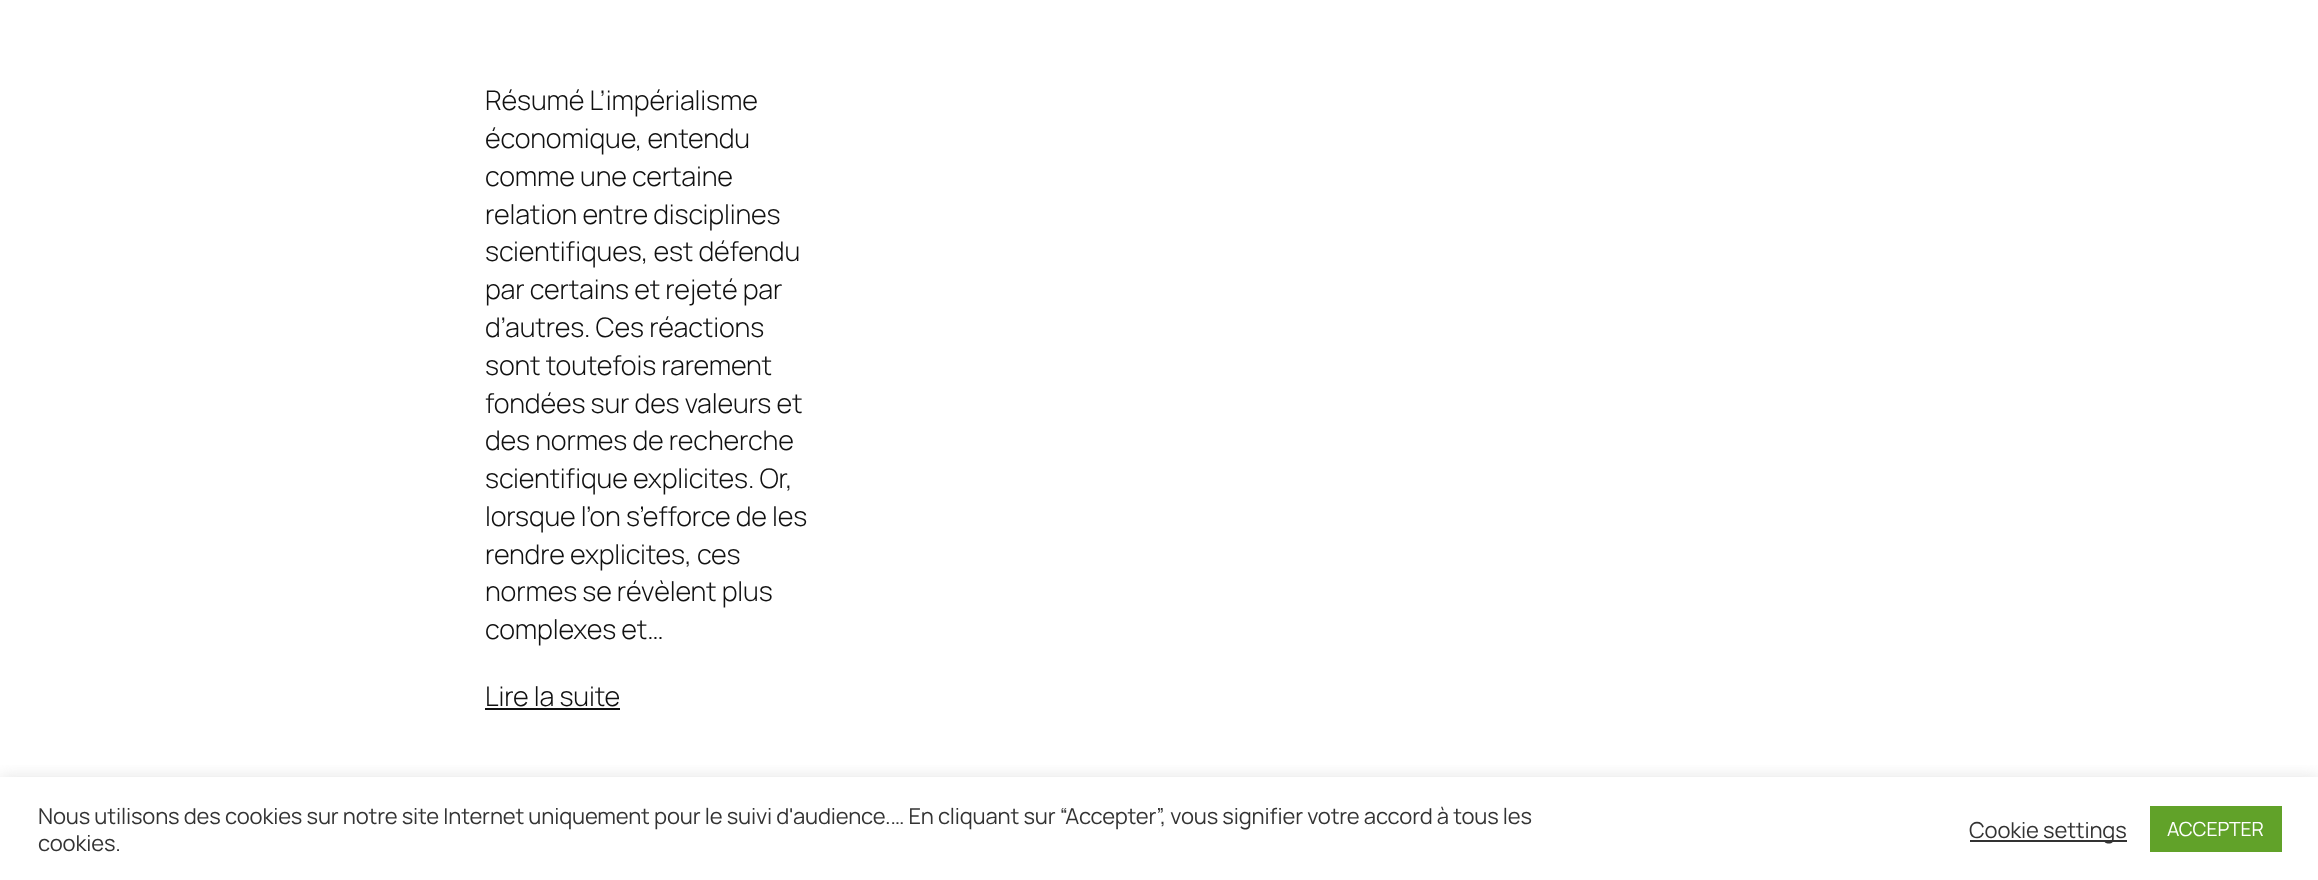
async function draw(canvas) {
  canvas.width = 2318;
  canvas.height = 880;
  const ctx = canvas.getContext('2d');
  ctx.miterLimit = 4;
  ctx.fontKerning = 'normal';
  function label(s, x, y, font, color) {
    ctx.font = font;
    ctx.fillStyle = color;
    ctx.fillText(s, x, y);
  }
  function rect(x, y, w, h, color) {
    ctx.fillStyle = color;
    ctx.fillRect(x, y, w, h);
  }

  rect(0, 0, 2318, 880, '#fff');
  ctx.letterSpacing = '-0.15px';
  label('Résumé L’impérialisme', 485, 110, '300 27px Manrope', '#111');
  label('économique, entendu', 485, 148, '300 27px Manrope', '#111');
  label('comme une certaine', 485, 186, '300 27px Manrope', '#111');
  label('relation entre disciplines', 485, 224, '300 27px Manrope', '#111');
  label('scientifiques, est défendu', 485, 261, '300 27px Manrope', '#111');
  label('par certains et rejeté par', 485, 299, '300 27px Manrope', '#111');
  label('d’autres. Ces réactions', 485, 337, '300 27px Manrope', '#111');
  label('sont toutefois rarement', 485, 375, '300 27px Manrope', '#111');
  label('fondées sur des valeurs et', 485, 413, '300 27px Manrope', '#111');
  label('des normes de recherche', 485, 450, '300 27px Manrope', '#111');
  label('scientifique explicites. Or,', 485, 488, '300 27px Manrope', '#111');
  label('lorsque l’on s’efforce de les', 485, 526, '300 27px Manrope', '#111');
  label('rendre explicites, ces', 485, 564, '300 27px Manrope', '#111');
  label('normes se révèlent plus', 485, 601, '300 27px Manrope', '#111');
  label('complexes et…', 485, 639, '300 27px Manrope', '#111');
  label('Lire la suite', 485, 706, '300 27px Manrope', '#111');
  rect(485, 708, 135, 2, '#111');
  ctx.save();
  ctx.beginPath();
  ctx.rect(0, 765, 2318, 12);
  ctx.clip();
  ctx.fillStyle = '#acabab4d';
  ctx.filter = 'blur(7.5px)';
  ctx.beginPath();
  ctx.rect(0, 776, 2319, 103);
  ctx.fill();
  ctx.filter = 'none';
  ctx.restore();
  label('Nous utilisons des cookies sur notre site Internet uniquement pour le suivi d\'audience.… En cliquant sur “Accepter”, vous signifier votre accord à tous les', 38, 824, '22px Manrope', '#333');
  label('cookies.', 38, 851, '22px Manrope', '#333');
  rect(1970, 840, 157, 2, '#333');
  label('Cookie settings', 1969, 838, '22px Manrope', '#333');
  rect(2150, 806, 132, 46, '#61a229');
  label('ACCEPTER', 2167, 836, '19.5px Manrope', '#fff');
}

draw(document.querySelector('canvas'));
